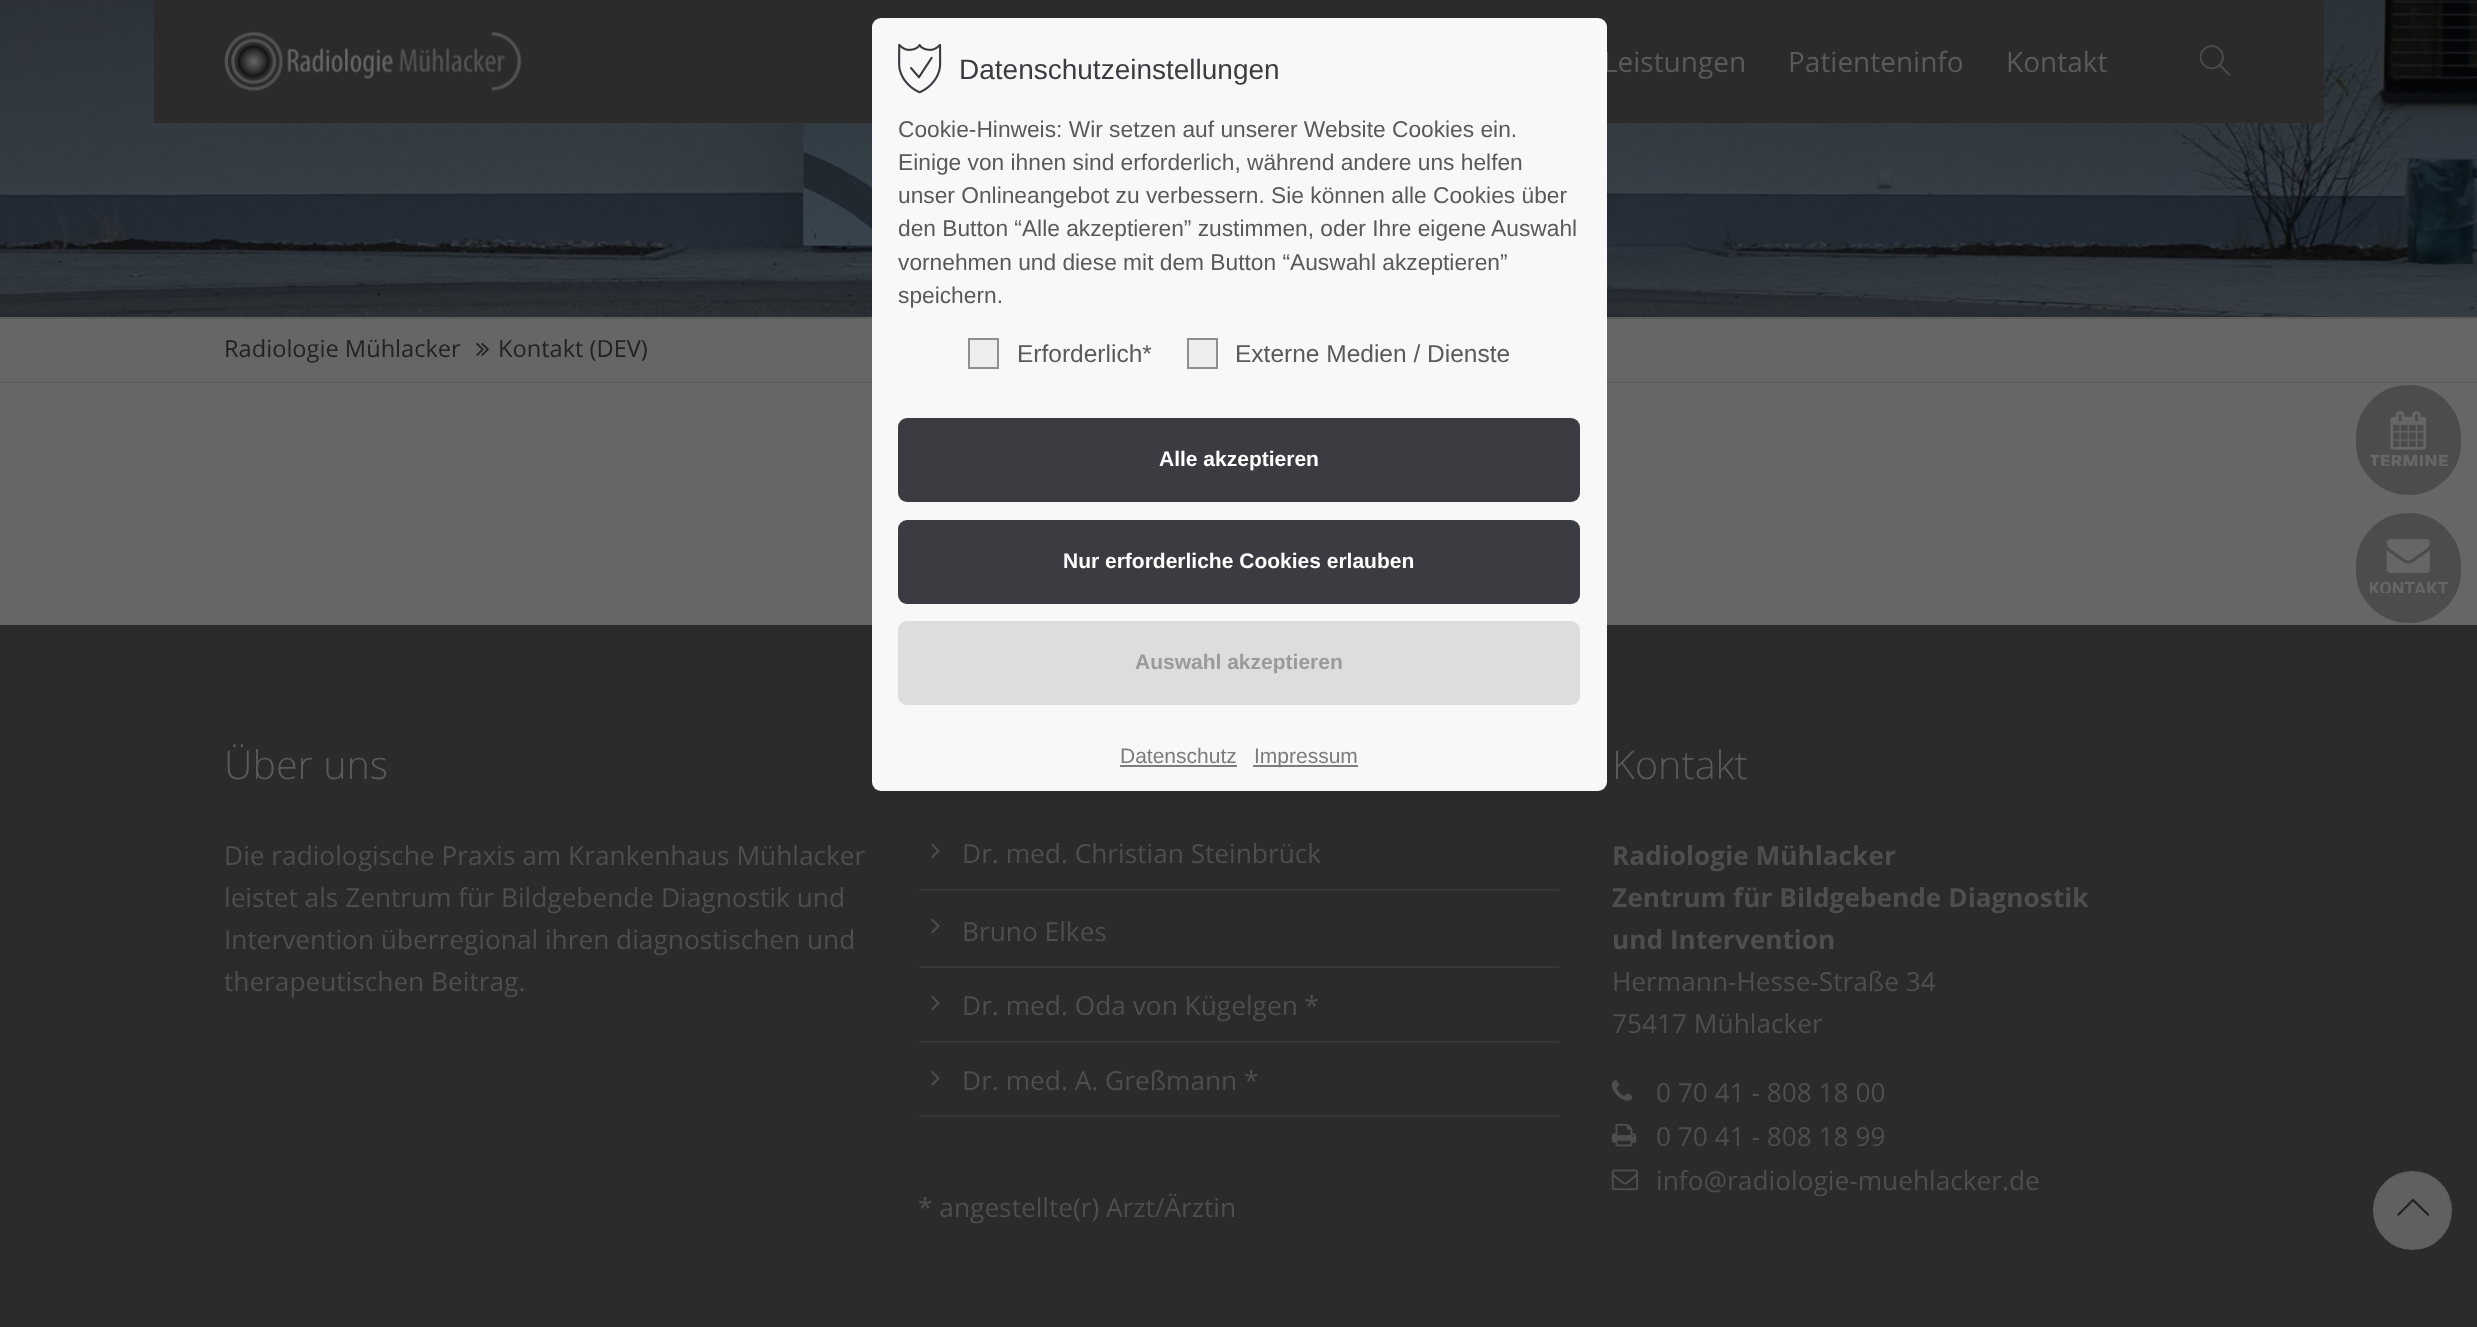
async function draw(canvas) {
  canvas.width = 2477;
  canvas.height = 1327;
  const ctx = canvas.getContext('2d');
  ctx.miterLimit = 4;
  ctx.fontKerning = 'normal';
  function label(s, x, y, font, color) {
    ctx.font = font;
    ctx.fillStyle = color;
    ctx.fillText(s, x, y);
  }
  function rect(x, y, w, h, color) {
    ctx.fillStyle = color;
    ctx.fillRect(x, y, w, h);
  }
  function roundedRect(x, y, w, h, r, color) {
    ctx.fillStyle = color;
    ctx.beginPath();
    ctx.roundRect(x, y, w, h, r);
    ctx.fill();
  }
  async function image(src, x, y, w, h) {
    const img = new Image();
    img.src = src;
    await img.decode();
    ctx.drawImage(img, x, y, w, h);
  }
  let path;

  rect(0, 0, 2477, 1327, '#666');
  await image('assets/img6.png', 0, 0, 2477, 317);
  rect(154, 0, 2170, 123, '#2b2b2b');
  label('Leistungen', 1603, 72, '28px Open Sans', '#5a5a5a');
  rect(0, 317, 2477, 2, '#5c5c5c');
  rect(0, 382, 2477, 1, '#5c5c5c');
  rect(0, 625, 2477, 702, '#2b2b2b');
  roundedRect(872, 18, 735, 773, 9, '#f8f8f8');
  await image('assets/img1.png', 898, 44, 44, 50);
  label('Datenschutzeinstellungen', 959, 79, '28px Liberation Sans', '#3b3c42');
  label('Cookie-Hinweis: Wir setzen auf unserer Website Cookies ein.', 898, 137, '22.75px Liberation Sans', '#5a5a5a');
  label('Einige von ihnen sind erforderlich, während andere uns helfen', 898, 170, '22.75px Liberation Sans', '#5a5a5a');
  label('unser Onlineangebot zu verbessern. Sie können alle Cookies über', 898, 203, '22.75px Liberation Sans', '#5a5a5a');
  label('den Button “Alle akzeptieren” zustimmen, oder Ihre eigene Auswahl', 898, 236, '22.75px Liberation Sans', '#5a5a5a');
  label('vornehmen und diese mit dem Button “Auswahl akzeptieren”', 898, 270, '22.75px Liberation Sans', '#5a5a5a');
  label('speichern.', 898, 303, '22.75px Liberation Sans', '#5a5a5a');
  ctx.fillStyle = '#eee';
  ctx.beginPath();
  ctx.rect(969, 339, 29, 29);
  ctx.fill();
  ctx.strokeStyle = '#8f8f8f';
  ctx.lineWidth = 2;
  ctx.stroke();
  label('Erforderlich*', 1017, 362, '24.5px Liberation Sans', '#5a5a5a');
  ctx.fillStyle = '#eee';
  ctx.beginPath();
  ctx.rect(1188, 339, 29, 29);
  ctx.fill();
  ctx.stroke();
  label('Externe Medien / Dienste', 1235, 362, '24.5px Liberation Sans', '#5a5a5a');
  roundedRect(898, 418, 682, 84, 9, '#3b3c42');
  label('Alle akzeptieren', 1159, 466, 'bold 21px Liberation Sans', '#fff');
  roundedRect(898, 520, 682, 84, 9, '#3b3c42');
  label('Nur erforderliche Cookies erlauben', 1063, 568, 'bold 21px Liberation Sans', '#fff');
  roundedRect(898, 621, 682, 84, 9, '#ddd');
  label('Auswahl akzeptieren', 1135, 669, 'bold 21px Liberation Sans', '#9a9a9a');
  label('Datenschutz', 1120, 763, '21px Liberation Sans', '#7c7c7c');
  rect(1120, 765, 117, 2, '#7c7c7c');
  rect(1253, 765, 105, 2, '#7c7c7c');
  label('Impressum', 1254, 763, '21px Liberation Sans', '#7c7c7c');
  ctx.fillStyle = '#4c4c4c';
  ctx.beginPath();
  ctx.roundRect(2357, 386, 103, 108, 51.5);
  ctx.fill();
  ctx.strokeStyle = '#4c4c4c';
  ctx.stroke();
  await image('assets/img2.png', 2370, 411, 78, 55);
  ctx.beginPath();
  ctx.roundRect(2357, 514, 103, 108, 51.5);
  ctx.fill();
  ctx.stroke();
  await image('assets/img3.png', 2370, 539, 78, 54);
  await image('assets/img4.png', 224, 31, 298, 61);
  label('Patienteninfo', 1788, 72, '28px Open Sans', '#5a5a5a');
  label('Kontakt', 2006, 72, '28px Open Sans', '#5a5a5a');
  await image('assets/img5.png', 2199, 45, 32, 31);
  label('Radiologie Mühlacker', 224, 357, '23.6px Open Sans', '#222');
  await image('assets/img7.png', 476, 342, 13, 14);
  label('Kontakt (DEV)', 498, 357, '23.6px Open Sans', '#222');
  label('Über uns', 224, 779, '300 39.5px Open Sans', '#5a5a5a');
  label('Die radiologische Praxis am Krankenhaus Mühlacker', 224, 865, '26.25px Open Sans', '#4e4e4e');
  label('leistet als Zentrum für Bildgebende Diagnostik und', 224, 907, '26.25px Open Sans', '#4e4e4e');
  label('Intervention überregional ihren diagnostischen und', 224, 949, '26.25px Open Sans', '#4e4e4e');
  label('therapeutischen Beitrag.', 224, 991, '26.25px Open Sans', '#4e4e4e');
  await image('assets/img8.png', 931, 843, 9, 15);
  label('Dr. med. Christian Steinbrück', 962, 863, '26.25px Open Sans', '#4e4e4e');
  rect(919, 889, 640, 2, '#373737');
  await image('assets/img9.png', 931, 918, 9, 16);
  label('Bruno Elkes', 962, 941, '26.25px Open Sans', '#4e4e4e');
  rect(919, 966, 640, 2, '#373737');
  await image('assets/img9.png', 931, 995, 9, 16);
  label('Dr. med. Oda von Kügelgen *', 962, 1015, '26.25px Open Sans', '#4e4e4e');
  rect(919, 1041, 640, 2, '#373737');
  await image('assets/img10.png', 931, 1071, 9, 15);
  label('Dr. med. A. Greßmann *', 962, 1090, '26.25px Open Sans', '#4e4e4e');
  rect(919, 1115, 640, 2, '#373737');
  label('* angestellte(r) Arzt/Ärztin', 918, 1217, '26.25px Open Sans', '#4e4e4e');
  label('Kontakt', 1612, 779, '300 39.5px Open Sans', '#5a5a5a');
  label('Radiologie Mühlacker', 1612, 865, 'bold 26.25px Open Sans', '#4e4e4e');
  label('Zentrum für Bildgebende Diagnostik', 1612, 907, 'bold 26.25px Open Sans', '#4e4e4e');
  label('und Intervention', 1612, 949, 'bold 26.25px Open Sans', '#4e4e4e');
  label('Hermann-Hesse-Straße 34', 1612, 991, '26.25px Open Sans', '#4e4e4e');
  label('75417 Mühlacker', 1612, 1033, '26.25px Open Sans', '#4e4e4e');
  await image('assets/img11.png', 1611, 1080, 22, 21);
  label('0 70 41 - 808 18 00', 1656, 1102, '26.25px Open Sans', '#4e4e4e');
  await image('assets/img12.png', 1611, 1123, 26, 24);
  label('0 70 41 - 808 18 99', 1656, 1146, '26.25px Open Sans', '#4e4e4e');
  await image('assets/img13.png', 1611, 1169, 27, 22);
  label('info@radiologie-muehlacker.de', 1656, 1190, '26.25px Open Sans', '#4e4e4e');
  ctx.fillStyle = '#606060';
  ctx.beginPath();
  ctx.arc(2412.5, 1210.5, 38.5, 0, 2 * Math.PI);
  ctx.fill();
  ctx.strokeStyle = '#5e5f5e';
  ctx.stroke();
  ctx.fillStyle = '#222';
  path = new Path2D('M2429.5 1214.5L2428 1216L2413 1201.5L2398.5 1216L2397 1214.5L2413 1198.5Z');
  ctx.fill(path);
}

draw(document.querySelector('canvas'));
